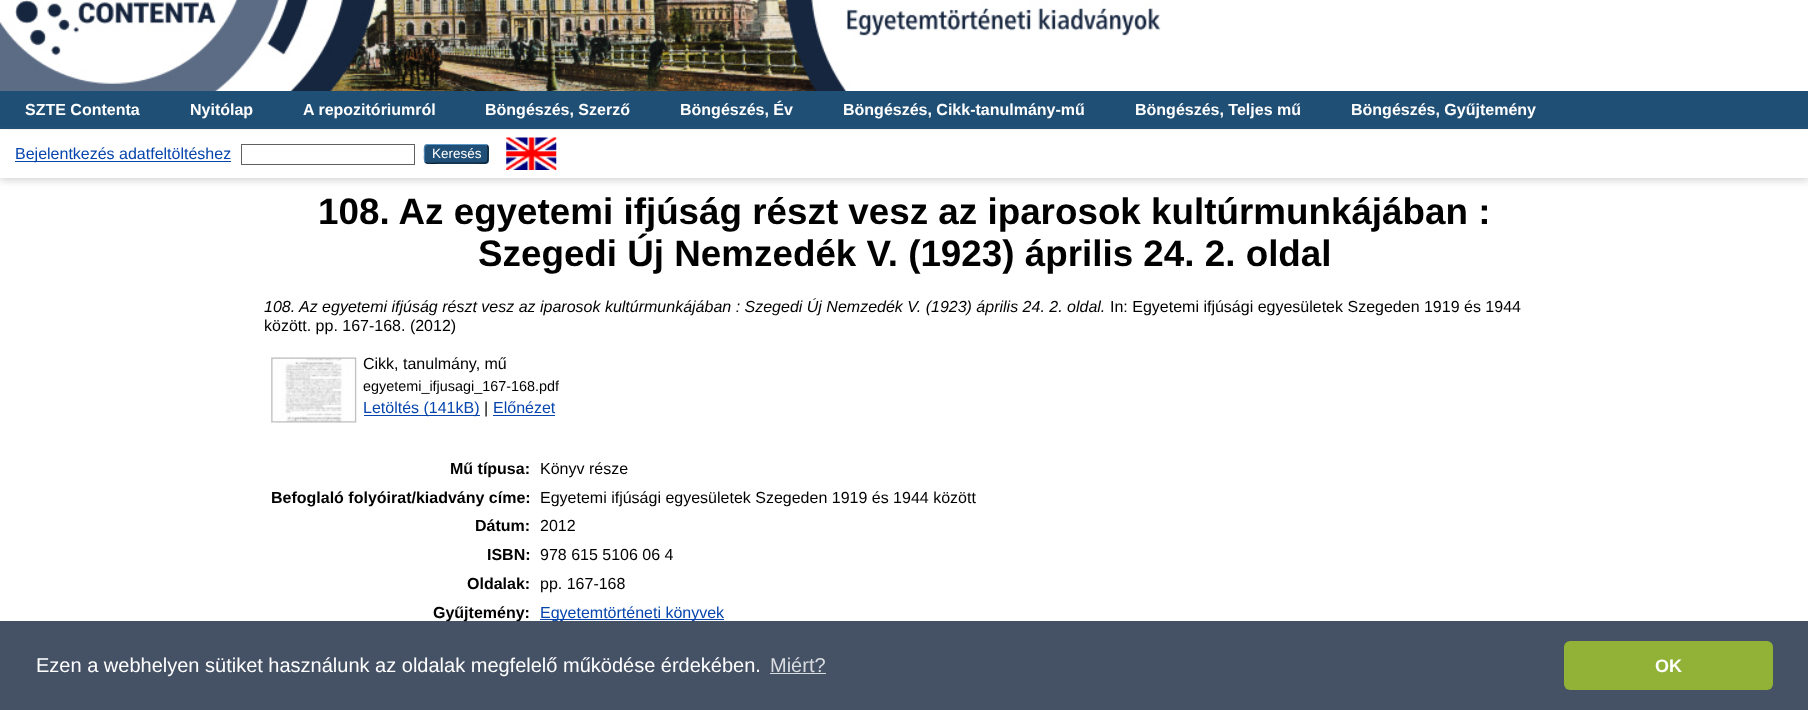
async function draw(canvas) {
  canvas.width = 1808;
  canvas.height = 710;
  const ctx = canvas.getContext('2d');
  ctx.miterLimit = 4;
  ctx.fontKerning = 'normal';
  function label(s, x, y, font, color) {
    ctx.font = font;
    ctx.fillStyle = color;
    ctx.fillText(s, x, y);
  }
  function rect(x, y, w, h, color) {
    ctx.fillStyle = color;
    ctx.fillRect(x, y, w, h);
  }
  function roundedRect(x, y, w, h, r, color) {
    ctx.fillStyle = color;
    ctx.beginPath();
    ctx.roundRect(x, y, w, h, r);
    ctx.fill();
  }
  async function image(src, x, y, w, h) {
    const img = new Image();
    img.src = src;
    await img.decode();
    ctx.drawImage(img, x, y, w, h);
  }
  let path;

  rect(0, 0, 1808, 710, '#fff');
  await image('assets/img1.png', 0, 0, 1161, 91);
  rect(0, 91, 1808, 38, '#204f76');
  label('SZTE Contenta', 25, 115, 'bold 16px Liberation Sans', '#fff');
  label('Nyitólap', 190, 115, 'bold 16px Liberation Sans', '#fff');
  label('A repozitóriumról', 303, 115, 'bold 16px Liberation Sans', '#fff');
  label('Böngészés, Szerző', 485, 115, 'bold 16px Liberation Sans', '#fff');
  label('Böngészés, Év', 680, 115, 'bold 16px Liberation Sans', '#fff');
  label('Böngészés, Cikk-tanulmány-mű', 843, 115, 'bold 16px Liberation Sans', '#fff');
  label('Böngészés, Teljes mű', 1135, 115, 'bold 16px Liberation Sans', '#fff');
  label('Böngészés, Gyűjtemény', 1351, 115, 'bold 16px Liberation Sans', '#fff');
  ctx.fillStyle = '#6464644d';
  ctx.filter = 'blur(4px)';
  ctx.beginPath();
  ctx.rect(0, 133, 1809, 47);
  ctx.fill();
  ctx.filter = 'none';
  rect(0, 130, 1808, 48, '#fff');
  rect(15, 161, 216, 1, '#0645ad');
  label('Bejelentkezés adatfeltöltéshez', 15, 159, '16px Liberation Sans', '#0645ad');
  ctx.strokeStyle = '#606060';
  ctx.strokeRect(241.5, 144.5, 173, 20);
  roundedRect(424, 144, 65, 20, 4, '#1f4f76');
  path = new Path2D('M425.5 145.5L427 144.5H485.5L487 145.5');
  ctx.strokeStyle = '#5b97c7';
  ctx.lineWidth = 1.2;
  ctx.stroke(path);
  path = new Path2D('M487 145.5C489 147.5 488 151.5 488 154C488 165 488 163 475.5 163H437C436.5 163 427.5 164.5 425.5 162');
  ctx.strokeStyle = '#0d2131';
  ctx.stroke(path);
  path = new Path2D('M425.5 162C423.5 160.5 424.5 156 424.5 154C424.5 151.5 423.5 147 425.5 145.5');
  ctx.strokeStyle = '#5287b3';
  ctx.stroke(path);
  label('Keresés', 432, 158, '13.5px Liberation Sans', '#fff');
  await image('assets/img2.png', 506, 137, 51, 33);
  label('108. Az egyetemi ifjúság részt vesz az iparosok kultúrmunkájában :', 318, 224, 'bold 36.8px Liberation Sans', '#000');
  label('Szegedi Új Nemzedék V. (1923) április 24. 2. oldal', 478, 266, 'bold 36.8px Liberation Sans', '#000');
  label('108. Az egyetemi ifjúság részt vesz az iparosok kultúrmunkájában : Szegedi Új Nemzedék V. (1923) április 24. 2. oldal.', 264, 312, 'italic 16px Liberation Sans', '#000');
  label('In: Egyetemi ifjúsági egyesületek Szegeden 1919 és 1944', 1110, 312, '16px Liberation Sans', '#000');
  label('között. pp. 167-168. (2012)', 264, 331, '16px Liberation Sans', '#000');
  await image('assets/img3.png', 271, 357, 86, 66);
  label('Cikk, tanulmány, mű', 363, 369, '16px Liberation Sans', '#000');
  label('egyetemi_ifjusagi_167-168.pdf', 363, 391, '14.4px Liberation Sans', '#000');
  rect(364, 415, 116, 1, '#0645ad');
  label('Letöltés (141kB)', 363, 413, '16px Liberation Sans', '#0645ad');
  label('|', 484, 413, '16px Liberation Sans', '#000');
  label('Előnézet', 493, 413, '16px Liberation Sans', '#0645ad');
  rect(493, 415, 62, 1, '#0645ad');
  label('Mű típusa:', 450, 474, 'bold 16px Liberation Sans', '#000');
  label('Könyv része', 540, 474, '16px Liberation Sans', '#000');
  label('Befoglaló folyóirat/kiadvány címe:', 271, 503, 'bold 16px Liberation Sans', '#000');
  label('Egyetemi ifjúsági egyesületek Szegeden 1919 és 1944 között', 540, 503, '16px Liberation Sans', '#000');
  label('Dátum:', 475, 531, 'bold 16px Liberation Sans', '#000');
  label('2012', 540, 531, '16px Liberation Sans', '#000');
  label('ISBN:', 487, 560, 'bold 16px Liberation Sans', '#000');
  label('978 615 5106 06 4', 540, 560, '16px Liberation Sans', '#000');
  label('Oldalak:', 467, 589, 'bold 16px Liberation Sans', '#000');
  label('pp. 167-168', 540, 589, '16px Liberation Sans', '#000');
  label('Gyűjtemény:', 433, 618, 'bold 16px Liberation Sans', '#000');
  rect(540, 619, 184, 1, '#0645ad');
  label('Egyetemtörténeti könyvek', 540, 618, '16px Liberation Sans', '#0645ad');
  rect(0, 621, 1808, 89, '#16263fcc');
  label('Ezen a webhelyen sütiket használunk az oldalak megfelelő működése érdekében.', 36, 672, '20px Liberation Sans', '#fff');
  label('Miért?', 770, 672, '20px Liberation Sans', '#d8dbdf');
  rect(770, 673, 56, 1, '#ffffffcc');
  roundedRect(1564, 641, 209, 49, 6, '#91b236');
  label('OK', 1655, 672, 'bold 18px Liberation Sans', '#fff');
}

draw(document.querySelector('canvas'));
